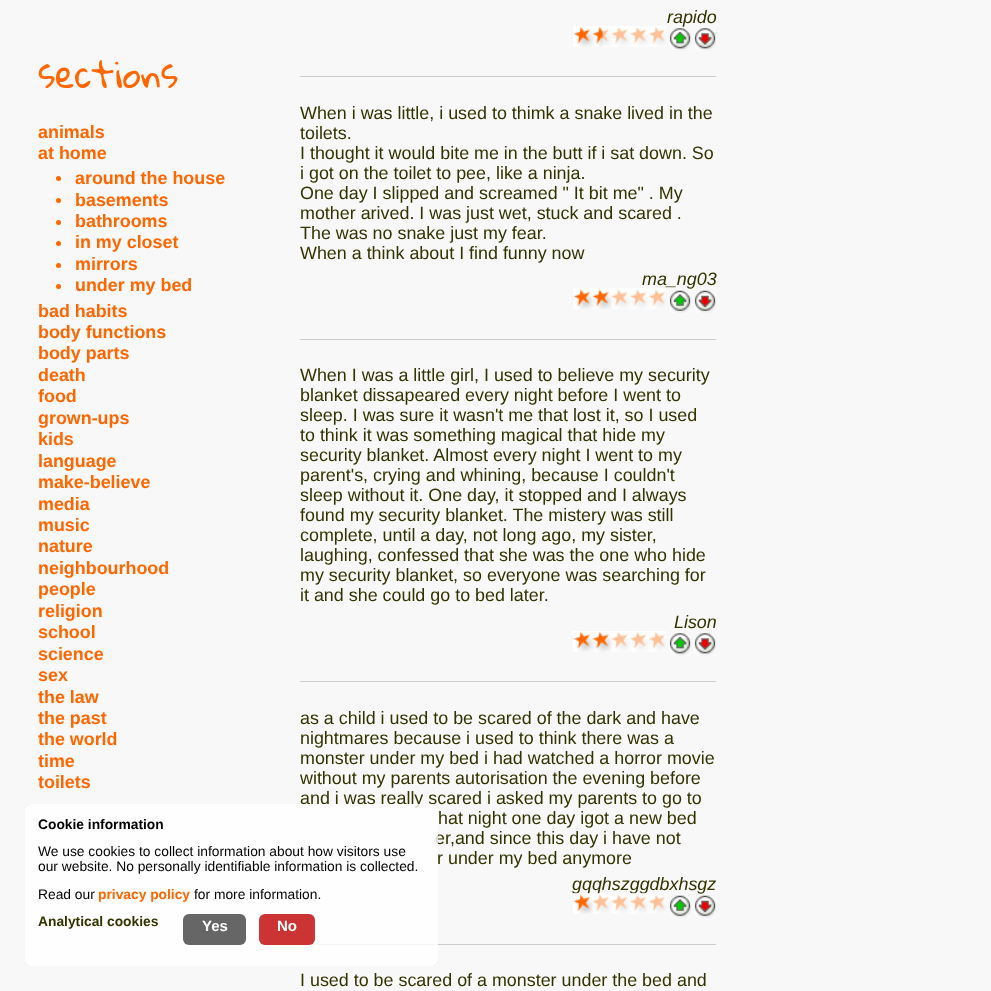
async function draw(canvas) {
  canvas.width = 991;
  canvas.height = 991;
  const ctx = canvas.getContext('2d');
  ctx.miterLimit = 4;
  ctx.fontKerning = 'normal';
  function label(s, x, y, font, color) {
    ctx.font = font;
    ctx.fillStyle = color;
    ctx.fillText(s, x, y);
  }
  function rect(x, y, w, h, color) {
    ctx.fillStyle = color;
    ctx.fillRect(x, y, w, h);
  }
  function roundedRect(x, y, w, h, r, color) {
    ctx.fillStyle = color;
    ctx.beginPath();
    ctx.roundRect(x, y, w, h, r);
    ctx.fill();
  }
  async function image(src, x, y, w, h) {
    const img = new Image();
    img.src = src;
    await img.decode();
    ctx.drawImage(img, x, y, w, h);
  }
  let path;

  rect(0, 0, 991, 991, '#f8f8f8');
  label('sections', 38, 88, '36px Gloria Hallelujah', '#f60');
  label('animals', 38, 138, 'bold 17.9px Liberation Sans', '#f60');
  label('at home', 38, 159, 'bold 17.9px Liberation Sans', '#f60');
  ctx.beginPath();
  ctx.arc(58.5, 178.5, 2.5, 0, 2 * Math.PI);
  ctx.fill();
  label('around the house', 75, 184, 'bold 17.9px Liberation Sans', '#f60');
  ctx.beginPath();
  ctx.arc(58.5, 200.5, 2.5, 0, 2 * Math.PI);
  ctx.fill();
  label('basements', 75, 206, 'bold 17.9px Liberation Sans', '#f60');
  ctx.beginPath();
  ctx.arc(58.5, 222.5, 2.5, 0, 2 * Math.PI);
  ctx.fill();
  label('bathrooms', 75, 227, 'bold 17.9px Liberation Sans', '#f60');
  ctx.beginPath();
  ctx.arc(58.5, 243.5, 2.5, 0, 2 * Math.PI);
  ctx.fill();
  label('in my closet', 75, 248, 'bold 17.9px Liberation Sans', '#f60');
  ctx.beginPath();
  ctx.arc(58.5, 265.5, 2.5, 0, 2 * Math.PI);
  ctx.fill();
  label('mirrors', 75, 270, 'bold 17.9px Liberation Sans', '#f60');
  ctx.beginPath();
  ctx.arc(58.5, 286.5, 2.5, 0, 2 * Math.PI);
  ctx.fill();
  label('under my bed', 75, 291, 'bold 17.9px Liberation Sans', '#f60');
  label('bad habits', 38, 317, 'bold 17.9px Liberation Sans', '#f60');
  label('body functions', 38, 338, 'bold 17.9px Liberation Sans', '#f60');
  label('body parts', 38, 359, 'bold 17.9px Liberation Sans', '#f60');
  label('death', 38, 381, 'bold 17.9px Liberation Sans', '#f60');
  label('food', 38, 402, 'bold 17.9px Liberation Sans', '#f60');
  label('grown-ups', 38, 424, 'bold 17.9px Liberation Sans', '#f60');
  label('kids', 38, 445, 'bold 17.9px Liberation Sans', '#f60');
  label('language', 38, 467, 'bold 17.9px Liberation Sans', '#f60');
  label('make-believe', 38, 488, 'bold 17.9px Liberation Sans', '#f60');
  label('media', 38, 510, 'bold 17.9px Liberation Sans', '#f60');
  label('music', 38, 531, 'bold 17.9px Liberation Sans', '#f60');
  label('nature', 38, 552, 'bold 17.9px Liberation Sans', '#f60');
  label('neighbourhood', 38, 574, 'bold 17.9px Liberation Sans', '#f60');
  label('people', 38, 595, 'bold 17.9px Liberation Sans', '#f60');
  label('religion', 38, 617, 'bold 17.9px Liberation Sans', '#f60');
  label('school', 38, 638, 'bold 17.9px Liberation Sans', '#f60');
  label('science', 38, 660, 'bold 17.9px Liberation Sans', '#f60');
  label('sex', 38, 681, 'bold 17.9px Liberation Sans', '#f60');
  label('the law', 38, 703, 'bold 17.9px Liberation Sans', '#f60');
  label('the past', 38, 724, 'bold 17.9px Liberation Sans', '#f60');
  label('the world', 38, 745, 'bold 17.9px Liberation Sans', '#f60');
  label('time', 38, 767, 'bold 17.9px Liberation Sans', '#f60');
  label('toilets', 38, 788, 'bold 17.9px Liberation Sans', '#f60');
  label('rapido', 667, 23, 'italic 17.9px Liberation Sans', '#330');
  await image('assets/img1.png', 573, 26, 93, 21);
  await image('assets/img2.png', 669, 28, 22, 23);
  await image('assets/img3.png', 694, 28, 22, 23);
  rect(300, 76, 416, 1, '#ccc');
  label('When i was little, i used to thimk a snake lived in the', 300, 119, '17.9px Liberation Sans', '#330');
  label('toilets.', 300, 139, '17.9px Liberation Sans', '#330');
  label('I thought it would bite me in the butt if i sat down. So', 300, 159, '17.9px Liberation Sans', '#330');
  label('i got on the toilet to pee, like a ninja.', 300, 179, '17.9px Liberation Sans', '#330');
  label('One day I slipped and screamed " It bit me" . My', 300, 199, '17.9px Liberation Sans', '#330');
  label('mother arived. I was just wet, stuck and scared .', 300, 219, '17.9px Liberation Sans', '#330');
  label('The was no snake just my fear.', 300, 239, '17.9px Liberation Sans', '#330');
  label('When a think about I find funny now', 300, 259, '17.9px Liberation Sans', '#330');
  label('ma_ng03', 642, 285, 'italic 17.9px Liberation Sans', '#330');
  await image('assets/img4.png', 573, 288, 93, 21);
  await image('assets/img5.png', 669, 290, 22, 23);
  await image('assets/img6.png', 694, 290, 22, 23);
  rect(300, 339, 416, 1, '#ccc');
  label('When I was a little girl, I used to believe my security', 300, 381, '17.9px Liberation Sans', '#330');
  label('blanket dissapeared every night before I went to', 300, 401, '17.9px Liberation Sans', '#330');
  label('sleep. I was sure it wasn\'t me that lost it, so I used', 300, 421, '17.9px Liberation Sans', '#330');
  label('to think it was something magical that hide my', 300, 441, '17.9px Liberation Sans', '#330');
  label('security blanket. Almost every night I went to my', 300, 461, '17.9px Liberation Sans', '#330');
  label('parent\'s, crying and whining, because I couldn\'t', 300, 481, '17.9px Liberation Sans', '#330');
  label('sleep without it. One day, it stopped and I always', 300, 501, '17.9px Liberation Sans', '#330');
  label('found my security blanket. The mistery was still', 300, 521, '17.9px Liberation Sans', '#330');
  label('complete, until a day, not long ago, my sister,', 300, 541, '17.9px Liberation Sans', '#330');
  label('laughing, confessed that she was the one who hide', 300, 561, '17.9px Liberation Sans', '#330');
  label('my security blanket, so everyone was searching for', 300, 581, '17.9px Liberation Sans', '#330');
  label('it and she could go to bed later.', 300, 601, '17.9px Liberation Sans', '#330');
  label('Lison', 674, 628, 'italic 17.9px Liberation Sans', '#330');
  await image('assets/img7.png', 573, 631, 93, 21);
  await image('assets/img2.png', 669, 633, 22, 23);
  await image('assets/img3.png', 694, 633, 22, 23);
  rect(300, 681, 416, 1, '#ccc');
  label('as a child i used to be scared of the dark and have', 300, 724, '17.9px Liberation Sans', '#330');
  label('nightmares because i used to think there was a', 300, 744, '17.9px Liberation Sans', '#330');
  label('monster under my bed i had watched a horror movie', 300, 764, '17.9px Liberation Sans', '#330');
  label('without my parents autorisation the evening before', 300, 784, '17.9px Liberation Sans', '#330');
  label('and i was really scared i asked my parents to go to', 300, 804, '17.9px Liberation Sans', '#330');
  label('hat night one day igot a new bed', 438, 824, '17.9px Liberation Sans', '#330');
  label('er,and since this day i have not', 435, 844, '17.9px Liberation Sans', '#330');
  label('r under my bed anymore', 437, 864, '17.9px Liberation Sans', '#330');
  label('gqqhszggdbxhsgz', 572, 890, 'italic 17.9px Liberation Sans', '#330');
  await image('assets/img8.png', 573, 893, 93, 21);
  await image('assets/img9.png', 669, 895, 22, 23);
  await image('assets/img10.png', 694, 895, 22, 23);
  rect(309, 944, 407, 1, '#ccc');
  label('I used to be scared of a monster under the bed and', 300, 986, '17.9px Liberation Sans', '#330');
  ctx.save();
  path = new Path2D('M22 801H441V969H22ZM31 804H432C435.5 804 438 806.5 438 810V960C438 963.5 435.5 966 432 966H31C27.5 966 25 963.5 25 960V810C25 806.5 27.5 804 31 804Z');
  ctx.clip(path, 'evenodd');
  ctx.fillStyle = '#00000066';
  ctx.filter = 'blur(0.5px)';
  ctx.beginPath();
  ctx.roundRect(25, 804, 413, 162, 6);
  ctx.fill();
  ctx.filter = 'none';
  ctx.restore();
  roundedRect(25, 804, 413, 162, 6, '#ffffffcc');
  label('Cookie information', 38, 829, 'bold 13.8px Liberation Sans', '#000');
  label('We use cookies to collect information about how visitors use', 38, 856, '13.8px Liberation Sans', '#000');
  label('our website. No personally identifiable information is collected.', 38, 871, '13.8px Liberation Sans', '#000');
  label('Read our', 38, 899, '13.8px Liberation Sans', '#000');
  label('privacy policy', 98, 899, 'bold 13.8px Liberation Sans', '#f60');
  label('for more information.', 194, 899, '13.8px Liberation Sans', '#000');
  label('Analytical cookies', 38, 926, 'bold 13.8px Liberation Sans', '#330');
  roundedRect(183, 914, 63, 31, 6, '#666');
  label('Yes', 202, 931, 'bold 15px Liberation Sans', '#fff');
  roundedRect(259, 914, 56, 31, 6, '#c33');
  label('No', 277, 931, 'bold 15px Liberation Sans', '#fff');
}

draw(document.querySelector('canvas'));
